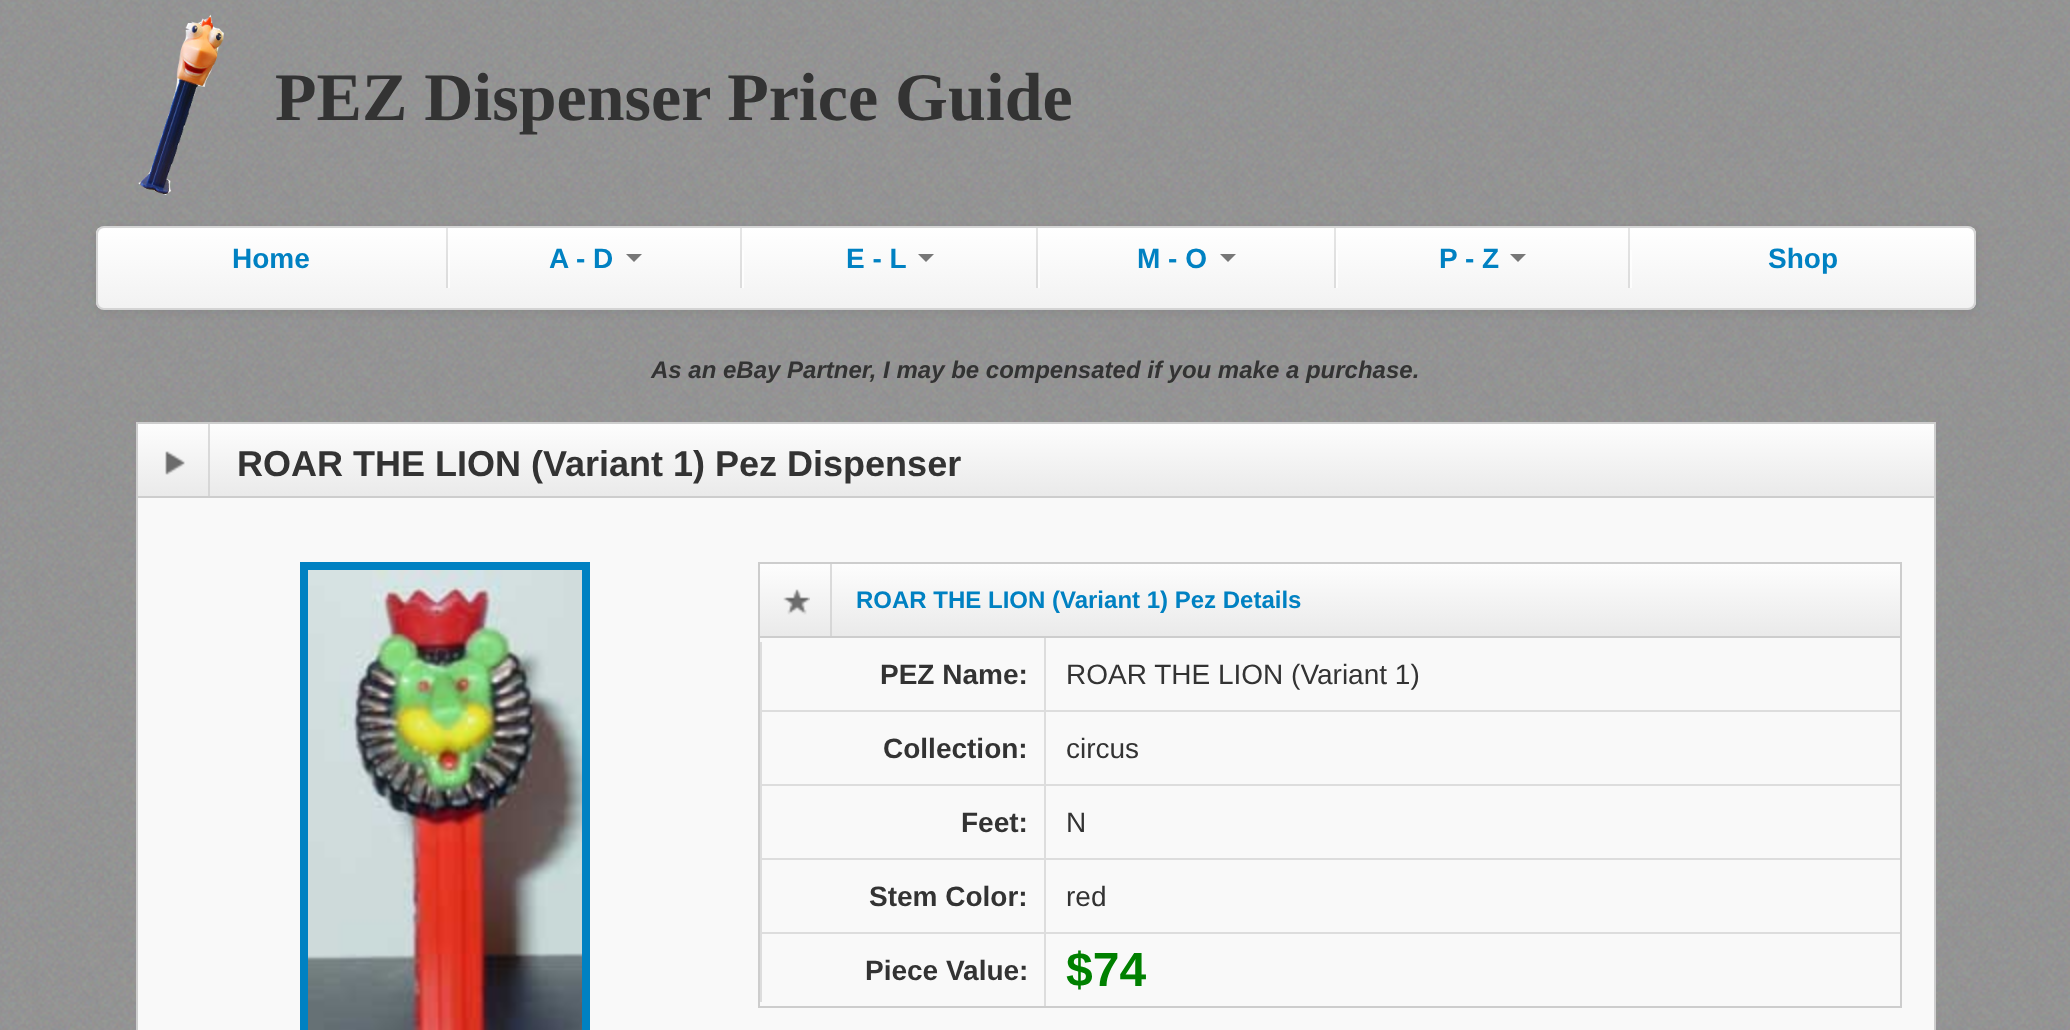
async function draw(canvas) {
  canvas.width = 2070;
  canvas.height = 1030;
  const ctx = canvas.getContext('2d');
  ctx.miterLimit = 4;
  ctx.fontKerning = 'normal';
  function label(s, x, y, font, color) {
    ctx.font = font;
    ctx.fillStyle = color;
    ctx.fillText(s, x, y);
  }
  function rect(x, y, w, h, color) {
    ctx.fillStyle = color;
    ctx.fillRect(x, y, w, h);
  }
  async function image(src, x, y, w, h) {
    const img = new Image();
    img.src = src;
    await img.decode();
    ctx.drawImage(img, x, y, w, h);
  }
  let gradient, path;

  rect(0, 0, 2070, 1030, '#fff');
  await image('assets/img1.png', 0, 0, 2070, 1030);
  await image('assets/img2.png', 138, 14, 86, 181);
  label('PEZ Dispenser Price Guide', 275, 120, 'bold 68px Liberation Serif', '#333');
  ctx.fillStyle = '#00000012';
  ctx.filter = 'blur(4px)';
  ctx.beginPath();
  ctx.roundRect(96, 228, 1880, 84, 8);
  ctx.fill();
  ctx.filter = 'none';
  ctx.save();
  ctx.beginPath();
  ctx.roundRect(96, 226, 1880, 84, 8);
  ctx.clip();
  gradient = ctx.createLinearGradient(1036, 228, 1036, 308);
  gradient.addColorStop(0, '#fff');
  gradient.addColorStop(1, '#f2f2f2');
  ctx.fillStyle = gradient;
  ctx.fillRect(96, 228, 1880, 80);
  ctx.restore();
  ctx.beginPath();
  ctx.roundRect(97, 227, 1878, 82, 7);
  ctx.strokeStyle = '#d4d4d4';
  ctx.lineWidth = 2;
  ctx.stroke();
  rect(446, 228, 2, 60, '#0000001a');
  label('Home', 232, 268, 'bold 28px Liberation Sans', '#0081c2');
  rect(740, 228, 2, 60, '#0000001a');
  rect(448, 250, 2, 38, '#ffffffbf');
  label('A - D', 549, 268, 'bold 28px Liberation Sans', '#0081c2');
  ctx.fillStyle = '#777';
  path = new Path2D('M626 254H642L634 262Z');
  ctx.fill(path);
  rect(1036, 228, 2, 60, '#0000001a');
  rect(742, 250, 2, 38, '#ffffffbf');
  label('E - L', 846, 268, 'bold 28px Liberation Sans', '#0081c2');
  ctx.fillStyle = '#777';
  path = new Path2D('M918 254H934L926 262Z');
  ctx.fill(path);
  rect(1334, 228, 2, 60, '#0000001a');
  rect(1038, 250, 2, 38, '#ffffffbf');
  label('M - O', 1137, 268, 'bold 28px Liberation Sans', '#0081c2');
  ctx.fillStyle = '#777';
  path = new Path2D('M1220 254H1236L1228 262Z');
  ctx.fill(path);
  rect(1628, 228, 2, 60, '#0000001a');
  rect(1336, 250, 2, 38, '#ffffffbf');
  label('P - Z', 1439, 268, 'bold 28px Liberation Sans', '#0081c2');
  ctx.fillStyle = '#777';
  path = new Path2D('M1510 254H1526L1518 262Z');
  ctx.fill(path);
  rect(1630, 250, 2, 38, '#ffffffbf');
  label('Shop', 1768, 268, 'bold 28px Liberation Sans', '#0081c2');
  label('As an eBay Partner, I may be compensated if you make a purchase.', 651, 378, 'italic bold 24px Liberation Sans', '#333');
  rect(138, 498, 1796, 532, '#f9f9f9');
  ctx.strokeStyle = '#cdcdcd';
  ctx.strokeRect(137, 423, 1798, 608);
  gradient = ctx.createLinearGradient(1036, 424, 1036, 496);
  gradient.addColorStop(0, '#fdfdfd');
  gradient.addColorStop(1, '#eaeaea');
  ctx.fillStyle = gradient;
  ctx.fillRect(138, 424, 1796, 72);
  rect(138, 496, 1796, 2, '#cdcdcd');
  rect(208, 424, 2, 72, '#cdcdcdb3');
  await image('assets/img3.png', 165, 451, 20, 24);
  label('ROAR THE LION (Variant 1) Pez Dispenser', 237, 476, 'bold 36px Liberation Sans', '#333');
  ctx.strokeStyle = '#0081c2';
  ctx.lineWidth = 8;
  ctx.strokeRect(304, 566, 282, 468);
  await image('assets/img4.png', 308, 570, 274, 460);
  ctx.strokeStyle = '#cdcdcd';
  ctx.lineWidth = 2;
  ctx.strokeRect(759, 563, 1142, 444);
  gradient = ctx.createLinearGradient(1330, 564, 1330, 636);
  gradient.addColorStop(0, '#fdfdfd');
  gradient.addColorStop(1, '#eaeaea');
  ctx.fillStyle = gradient;
  ctx.fillRect(760, 564, 1140, 72);
  rect(760, 636, 1140, 2, '#cdcdcd');
  rect(830, 564, 2, 72, '#cdcdcdb3');
  await image('assets/img5.png', 783, 589, 27, 26);
  label('ROAR THE LION (Variant 1) Pez Details', 856, 608, 'bold 24px Liberation Sans', '#0081c2');
  rect(760, 642, 2, 68, '#ddd');
  label('PEZ Name:', 880, 684, 'bold 28px Liberation Sans', '#333');
  rect(1044, 638, 2, 72, '#ddd');
  label('ROAR THE LION (Variant 1)', 1066, 684, '28px Liberation Sans', '#333');
  rect(760, 710, 1140, 2, '#ddd');
  rect(760, 710, 2, 74, '#ddd');
  label('Collection:', 883, 758, 'bold 28px Liberation Sans', '#333');
  rect(1044, 710, 2, 74, '#ddd');
  label('circus', 1066, 758, '28px Liberation Sans', '#333');
  rect(760, 784, 1140, 2, '#ddd');
  rect(760, 784, 2, 74, '#ddd');
  label('Feet:', 961, 832, 'bold 28px Liberation Sans', '#333');
  rect(1044, 784, 2, 74, '#ddd');
  label('N', 1066, 832, '28px Liberation Sans', '#333');
  rect(760, 858, 1140, 2, '#ddd');
  rect(760, 858, 2, 74, '#ddd');
  label('Stem Color:', 869, 906, 'bold 28px Liberation Sans', '#333');
  rect(1044, 858, 2, 74, '#ddd');
  label('red', 1066, 906, '28px Liberation Sans', '#333');
  rect(760, 932, 1140, 2, '#ddd');
  rect(760, 932, 2, 70, '#ddd');
  label('Piece Value:', 865, 980, 'bold 28px Liberation Sans', '#333');
  rect(1044, 932, 2, 74, '#ddd');
  label('$74', 1066, 986, 'bold 48px Liberation Sans', '#008000');
}

draw(document.querySelector('canvas'));
